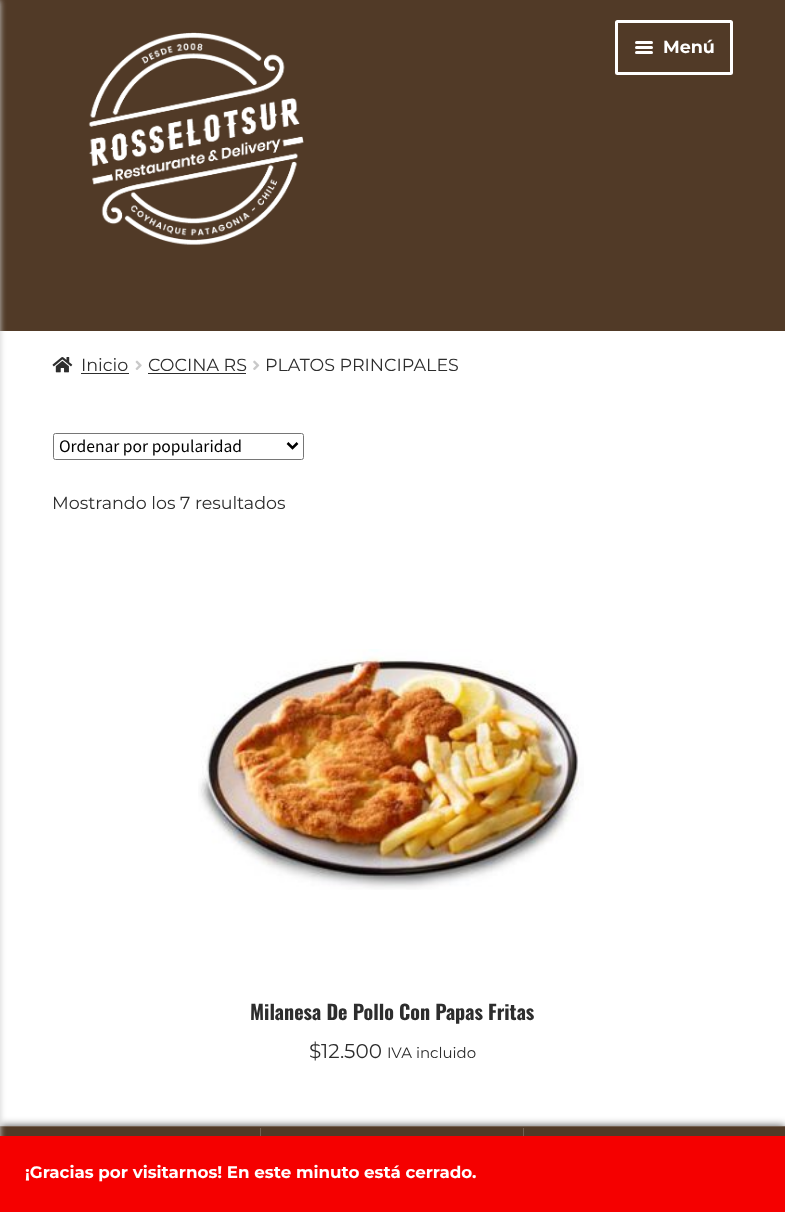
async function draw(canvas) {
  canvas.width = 785;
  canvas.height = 1212;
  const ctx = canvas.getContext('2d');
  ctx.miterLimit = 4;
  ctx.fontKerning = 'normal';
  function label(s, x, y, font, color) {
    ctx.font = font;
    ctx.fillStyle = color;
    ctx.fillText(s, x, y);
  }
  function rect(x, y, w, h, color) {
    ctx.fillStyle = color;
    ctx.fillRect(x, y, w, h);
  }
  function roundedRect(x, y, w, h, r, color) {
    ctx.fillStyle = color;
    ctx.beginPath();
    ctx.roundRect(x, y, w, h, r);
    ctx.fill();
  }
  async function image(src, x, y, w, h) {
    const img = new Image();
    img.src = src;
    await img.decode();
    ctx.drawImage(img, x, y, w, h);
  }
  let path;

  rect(0, 0, 785, 1212, '#fff');
  rect(0, 0, 785, 331, '#513a27');
  ctx.fillStyle = '#000000b3';
  ctx.filter = 'blur(4px)';
  ctx.beginPath();
  ctx.rect(0, 1126, 785, 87);
  ctx.fill();
  ctx.filter = 'none';
  rect(0, 1127, 785, 1, '#513a27');
  rect(0, 1126, 785, 1, '#746152');
  rect(0, 1128, 260, 8, '#513a27');
  ctx.fillStyle = '#ccc';
  ctx.filter = 'blur(3px)';
  ctx.beginPath();
  ctx.rect(-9, 0, 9, 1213);
  ctx.fill();
  ctx.filter = 'none';
  await image('assets/img1.png', 88, 32, 216, 213);
  ctx.beginPath();
  ctx.roundRect(616.5, 21.5, 115, 52, 1);
  ctx.strokeStyle = '#fff';
  ctx.lineWidth = 3;
  ctx.stroke();
  roundedRect(635, 41, 18, 3, 1.5, '#fff');
  roundedRect(635, 46, 18, 3, 1.5, '#fff');
  label('Menú', 663, 53, 'bold 17.5px Montserrat', '#fff');
  roundedRect(635, 51, 18, 3, 1.5, '#fff');
  await image('assets/img2.png', 52, 357, 21, 16);
  label('Inicio', 81, 371, '17.5px Montserrat', '#2d2d2d');
  rect(81, 373, 48, 1, '#2d2d2d');
  await image('assets/img3.png', 135, 360, 7, 10);
  label('COCINA RS', 148, 371, '17.5px Montserrat', '#2d2d2d');
  rect(148, 373, 98, 1, '#2d2d2d');
  await image('assets/img4.png', 253, 360, 7, 10);
  label('PLATOS PRINCIPALES', 265, 371, '17.5px Montserrat', '#2d2d2d');
  ctx.beginPath();
  ctx.roundRect(53.5, 433.5, 250, 26, 2);
  ctx.strokeStyle = '#767676';
  ctx.lineWidth = 1;
  ctx.stroke();
  path = new Path2D('M287.5 443L292.5 448L297.5 443');
  ctx.strokeStyle = '#000';
  ctx.lineWidth = 2.5;
  ctx.stroke(path);
  label('Ordenar por popularidad', 59, 452, '17.5px Source Sans Pro', '#000');
  label('Mostrando los 7 resultados', 52, 509, '17.5px Montserrat', '#2d2d2d');
  await image('assets/img5.png', 198, 649, 386, 241);
  label('Milanesa De Pollo Con Papas Fritas', 250, 1020, 'bold 20px Oswald', '#2d2d2d');
  label('$12.500', 309, 1058, '20px Montserrat', '#2d2d2d');
  label('IVA incluido', 387, 1058, '15px Montserrat', '#2d2d2d');
  rect(260, 1128, 1, 8, '#746152');
  rect(261, 1128, 262, 8, '#513a27');
  rect(523, 1128, 1, 8, '#746152');
  rect(524, 1128, 261, 8, '#513a27');
  rect(0, 1136, 785, 76, '#f50000');
  label('¡Gracias por visitarnos! En este minuto está cerrado.', 25, 1178, 'bold 16.7px Montserrat', '#fff');
}

draw(document.querySelector('canvas'));
